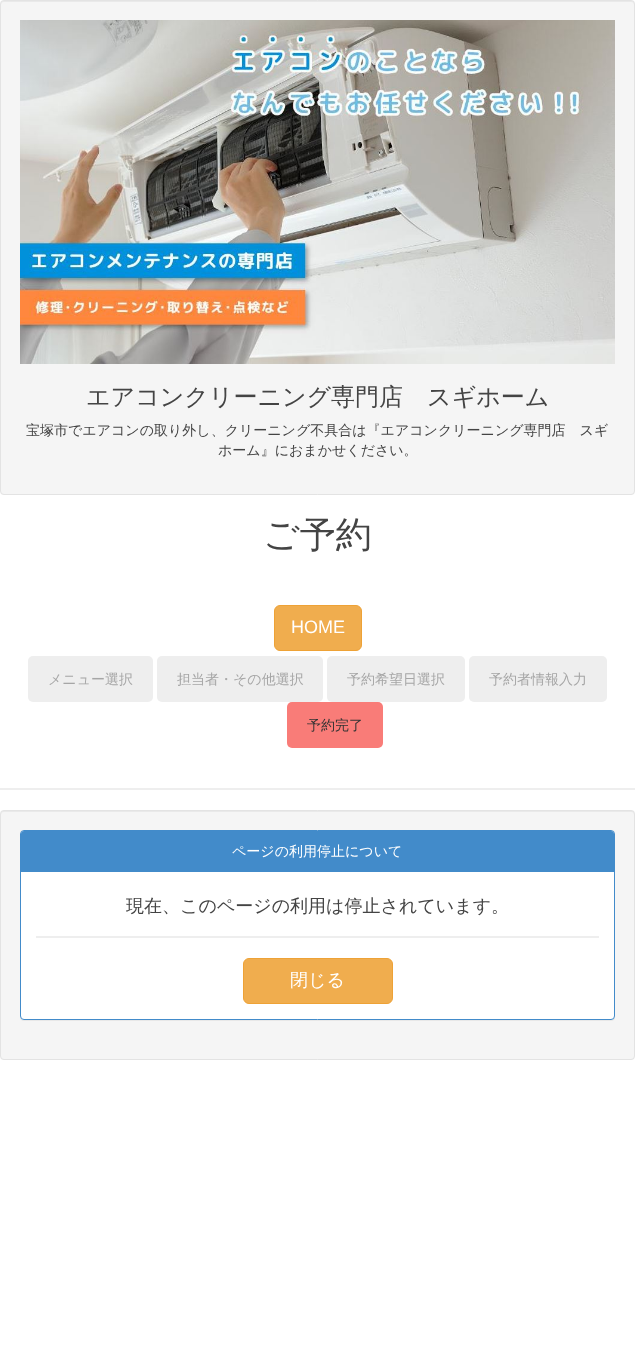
async function draw(canvas) {
  canvas.width = 635;
  canvas.height = 1346;
  const ctx = canvas.getContext('2d');
  ctx.miterLimit = 4;
  ctx.fontKerning = 'normal';
  function label(s, x, y, font, color) {
    ctx.font = font;
    ctx.fillStyle = color;
    ctx.fillText(s, x, y);
  }
  function rect(x, y, w, h, color) {
    ctx.fillStyle = color;
    ctx.fillRect(x, y, w, h);
  }
  function roundedRect(x, y, w, h, r, color) {
    ctx.fillStyle = color;
    ctx.beginPath();
    ctx.roundRect(x, y, w, h, r);
    ctx.fill();
  }
  async function image(src, x, y, w, h) {
    const img = new Image();
    img.src = src;
    await img.decode();
    ctx.drawImage(img, x, y, w, h);
  }
  let path;

  rect(0, 0, 635, 1346, '#fff');
  roundedRect(0, 0, 635, 495, 4, '#f5f5f5');
  ctx.fillStyle = '#e9e9e9';
  path = new Path2D('M4 2H631C633 2 634 3 634 5V4C634 2 633 1 631 1H4C2 1 1 2 1 4V5C1 3 2 2 4 2Z');
  ctx.fill(path);
  ctx.beginPath();
  ctx.roundRect(0.5, 0.5, 634, 494, 3.5);
  ctx.strokeStyle = '#e3e3e3';
  ctx.stroke();
  await image('assets/img1.png', 20, 20, 595, 344);
  label('エアコンクリーニング専門店　スギホーム', 86, 405, '500 24px WenQuanYi Zen Hei', '#444');
  label('宝塚市でエアコンの取り外し、クリーニング不具合は『エアコンクリーニング専門店　スギ', 26, 435, '500 14px WenQuanYi Zen Hei', '#444');
  label('ホーム』におまかせください。', 218, 455, '500 14px WenQuanYi Zen Hei', '#444');
  label('ご予約', 263, 547, '500 36px WenQuanYi Zen Hei', '#444');
  ctx.fillStyle = '#f0ad4e';
  ctx.beginPath();
  ctx.roundRect(274.5, 605.5, 87, 45, 5.5);
  ctx.fill();
  ctx.strokeStyle = '#eea236';
  ctx.stroke();
  label('HOME', 291, 633, '18px Liberation Sans', '#fff');
  roundedRect(28, 656, 125, 46, 5, '#eee');
  label('メニュー選択', 48, 684, '500 14px WenQuanYi Zen Hei', '#a6a6a6');
  roundedRect(157, 656, 166, 46, 5, '#eee');
  label('担当者・その他選択', 177, 684, '500 14px WenQuanYi Zen Hei', '#a6a6a6');
  roundedRect(327, 656, 138, 46, 5, '#eee');
  label('予約希望日選択', 347, 684, '500 14px WenQuanYi Zen Hei', '#a6a6a6');
  roundedRect(469, 656, 138, 46, 5, '#eee');
  label('予約者情報入力', 489, 684, '500 14px WenQuanYi Zen Hei', '#a6a6a6');
  roundedRect(287, 702, 96, 46, 5, '#f97c78');
  label('予約完了', 307, 730, '500 14px WenQuanYi Zen Hei', '#333');
  rect(0, 788, 635, 2, '#eee');
  roundedRect(0, 810, 635, 250, 4, '#f5f5f5');
  ctx.fillStyle = '#e9e9e9';
  path = new Path2D('M4 812H631C633 812 634 813 634 815V814C634 812 633 811 631 811H4C2 811 1 812 1 814V815C1 813 2 812 4 812Z');
  ctx.fill(path);
  ctx.beginPath();
  ctx.roundRect(0.5, 810.5, 634, 249, 3.5);
  ctx.strokeStyle = '#e3e3e3';
  ctx.stroke();
  ctx.fillStyle = '#0000000d';
  ctx.filter = 'blur(0.5px)';
  ctx.beginPath();
  ctx.roundRect(20, 831, 595, 190, 4);
  ctx.fill();
  ctx.filter = 'none';
  ctx.fillStyle = '#fff';
  ctx.beginPath();
  ctx.roundRect(20.5, 830.5, 594, 189, 3.5);
  ctx.fill();
  ctx.strokeStyle = '#428bca';
  ctx.stroke();
  ctx.fillStyle = '#428bca';
  ctx.beginPath();
  ctx.roundRect(21, 831, 593, 41, [3, 3, 0, 0]);
  ctx.fill();
  label('ページの利用停止について', 232, 856, '500 14px WenQuanYi Zen Hei', '#fff');
  label('現在、このページの利用は停止されています。', 126, 912, '500 18px WenQuanYi Zen Hei', '#444');
  rect(36, 936, 563, 2, '#eee');
  ctx.fillStyle = '#f0ad4e';
  ctx.beginPath();
  ctx.roundRect(243.5, 958.5, 149, 45, 5.5);
  ctx.fill();
  ctx.strokeStyle = '#eea236';
  ctx.stroke();
  label('閉じる', 290, 986, '500 18px WenQuanYi Zen Hei', '#fff');
}

draw(document.querySelector('canvas'));
